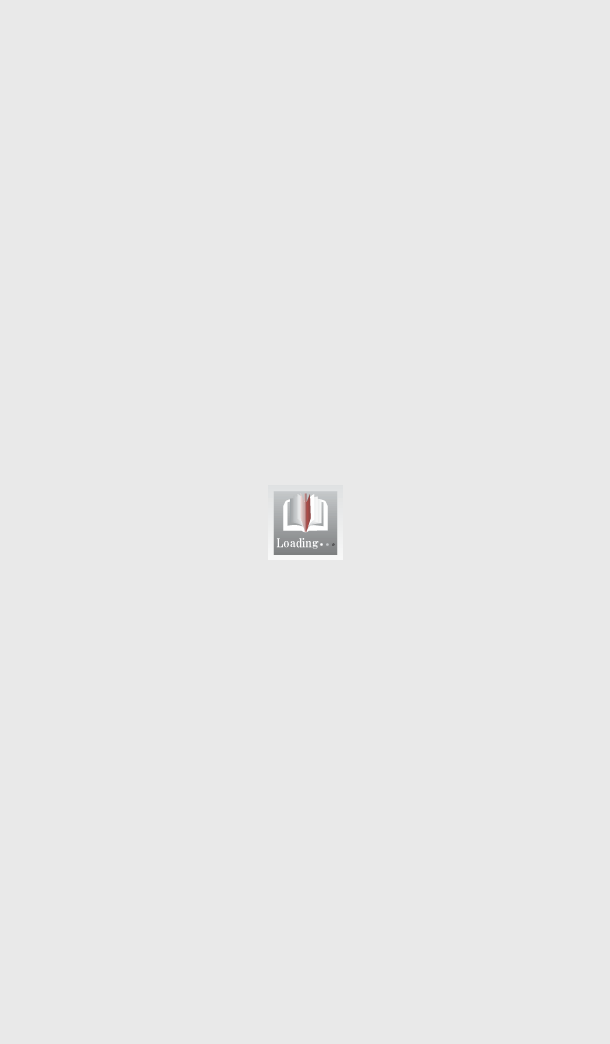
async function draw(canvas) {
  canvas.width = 610;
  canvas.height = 1044;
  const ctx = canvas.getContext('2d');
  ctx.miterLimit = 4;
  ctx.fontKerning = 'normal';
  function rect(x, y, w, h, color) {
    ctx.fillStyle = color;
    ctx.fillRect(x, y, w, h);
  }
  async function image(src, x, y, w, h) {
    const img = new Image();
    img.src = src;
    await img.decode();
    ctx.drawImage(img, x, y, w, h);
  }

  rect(0, 0, 610, 1044, '#e9e9e9');
  await image('assets/img1.png', 268, 485, 75, 75);
}

draw(document.querySelector('canvas'));
